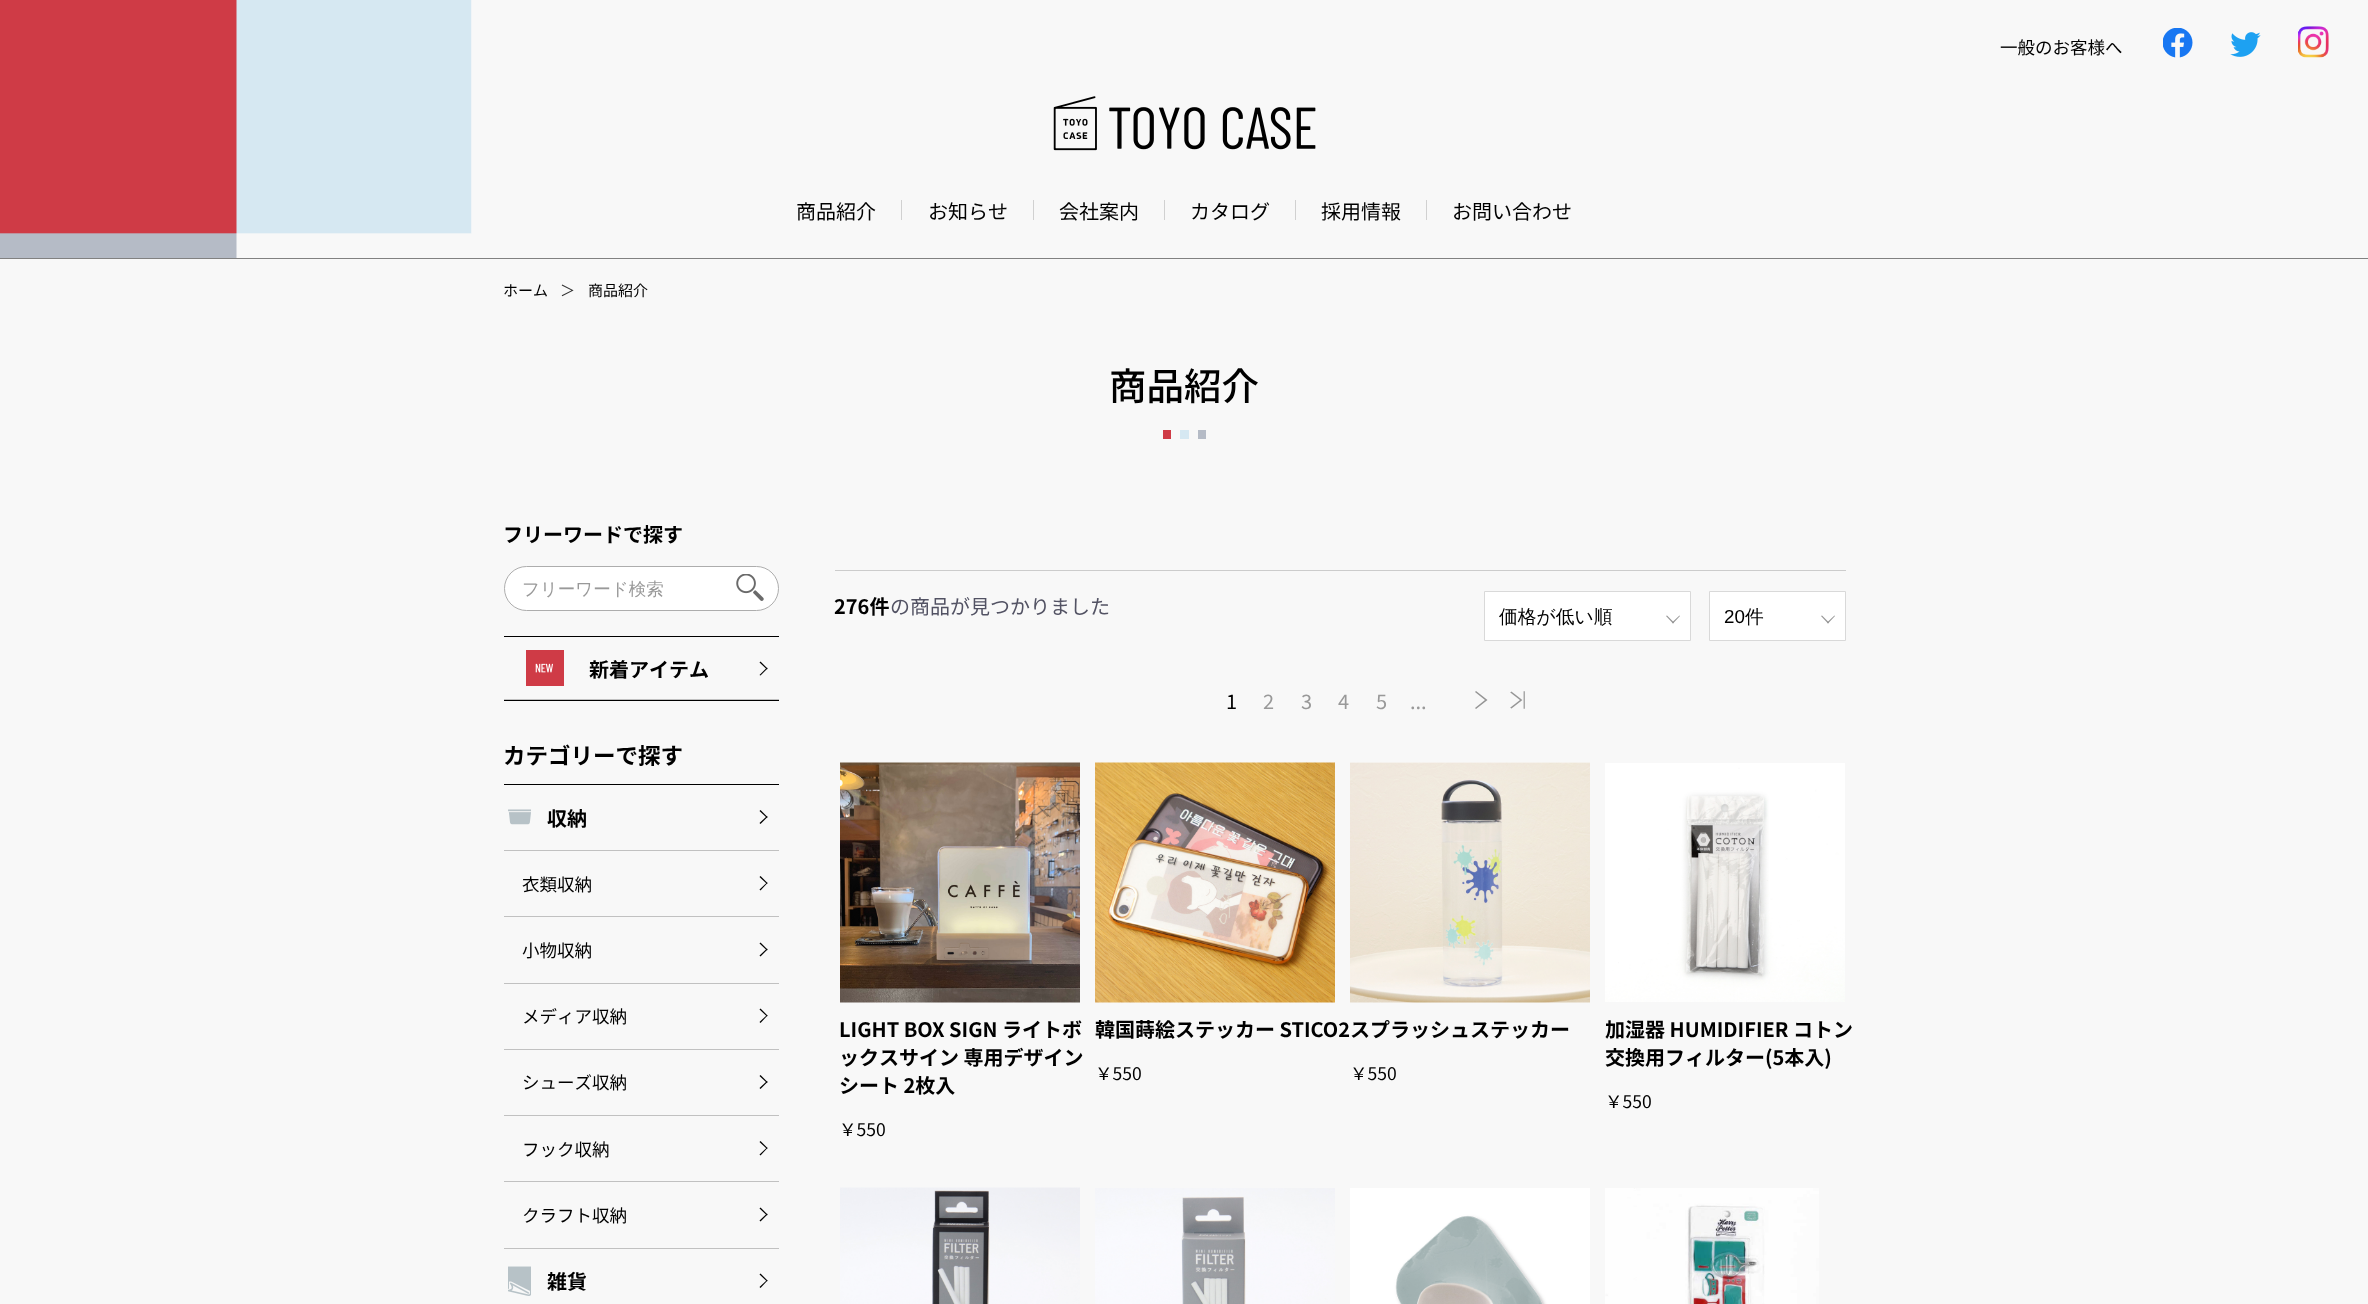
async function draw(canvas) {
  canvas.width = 2368;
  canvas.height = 1304;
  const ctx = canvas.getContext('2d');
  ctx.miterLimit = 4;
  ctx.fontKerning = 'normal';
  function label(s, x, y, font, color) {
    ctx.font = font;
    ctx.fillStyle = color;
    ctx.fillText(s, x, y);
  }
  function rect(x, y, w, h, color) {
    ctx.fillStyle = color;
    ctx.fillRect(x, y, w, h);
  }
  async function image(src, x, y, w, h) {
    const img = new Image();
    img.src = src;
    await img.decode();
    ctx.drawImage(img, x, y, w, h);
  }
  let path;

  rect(0, 0, 2368, 1304, '#f8f8f8');
  await image('assets/img1.png', 0, 0, 472, 258);
  label('一般のお客様へ', 2000, 54, '17.5px Noto Sans JP', '#000');
  await image('assets/img2.png', 2163, 28, 30, 30);
  await image('assets/img3.png', 2230, 32, 31, 25);
  await image('assets/img4.png', 2298, 26, 31, 32);
  await image('assets/img5.png', 1053, 96, 263, 55);
  rect(901, 200, 1, 20, '#d1d1d1');
  label('商品紹介', 796, 219, '20px Noto Sans JP', '#000');
  rect(1033, 200, 1, 20, '#d1d1d1');
  label('お知らせ', 928, 219, '20px Noto Sans JP', '#000');
  rect(1164, 200, 1, 20, '#d1d1d1');
  label('会社案内', 1059, 219, '20px Noto Sans JP', '#000');
  rect(1295, 200, 1, 20, '#d1d1d1');
  label('カタログ', 1190, 219, '20px Noto Sans JP', '#000');
  rect(1426, 200, 1, 20, '#d1d1d1');
  label('採用情報', 1321, 219, '20px Noto Sans JP', '#000');
  label('お問い合わせ', 1452, 219, '20px Noto Sans JP', '#000');
  rect(0, 258, 2368, 1, '#818181');
  label('ホーム', 503, 296, '15px Noto Sans JP', '#000');
  label('＞', 560, 296, '15px Noto Sans JP', '#333');
  label('商品紹介', 588, 296, '15px Noto Sans JP', '#000');
  label('商品紹介', 1109, 400, '500 37.5px Noto Sans JP', '#000');
  rect(1180, 430, 9, 9, '#d6e8f2');
  rect(1198, 430, 8, 9, '#b5bbc6');
  rect(1163, 430, 8, 9, '#cf3b46');
  label('フリーワードで探す', 503, 542, 'bold 20px Noto Sans JP', '#000');
  ctx.fillStyle = '#fff';
  ctx.beginPath();
  ctx.roundRect(504.5, 566.5, 274, 44, 22);
  ctx.fill();
  ctx.strokeStyle = '#adadad';
  ctx.stroke();
  label('フリーワード検索', 522, 595, '500 17.5px WenQuanYi Zen Hei', '#999');
  await image('assets/img6.png', 736, 574, 28, 27);
  rect(504, 636, 275, 1, '#000');
  rect(504, 700, 275, 1, '#000');
  rect(504, 699, 275, 1, '#c1c1c1');
  await image('assets/img7.png', 526, 650, 38, 36);
  label('新着アイテム', 589, 677, 'bold 20px Noto Sans JP', '#000');
  path = new Path2D('M760.5 661.5L767.5 668.5L767 669.5L759.5 662.5Z');
  ctx.fill(path);
  path = new Path2D('M767 667.5L767.5 668.5L760.5 675.5L759.5 675Z');
  ctx.fill(path);
  rect(504, 784, 275, 1, '#000');
  label('カテゴリーで探す', 503, 764, 'bold 22.5px Noto Sans JP', '#000');
  rect(504, 850, 275, 1, '#c1c1c1');
  await image('assets/img8.png', 508, 809, 23, 16);
  label('収納', 547, 826, 'bold 20px Noto Sans JP', '#000');
  path = new Path2D('M760.5 810L767.5 817L767 818L759.5 811Z');
  ctx.fill(path);
  path = new Path2D('M767 816L767.5 817L760.5 824L759.5 823Z');
  ctx.fill(path);
  rect(504, 916, 275, 1, '#c1c1c1');
  label('衣類収納', 522, 891, '17.5px Noto Sans JP', '#000');
  path = new Path2D('M760.5 876L767.5 883L767 884L759.5 877Z');
  ctx.fill(path);
  path = new Path2D('M767 882.5L767.5 883L760.5 890.5L759.5 889.5Z');
  ctx.fill(path);
  rect(504, 983, 275, 1, '#c1c1c1');
  label('小物収納', 522, 957, '17.5px Noto Sans JP', '#000');
  path = new Path2D('M760.5 942.5L767.5 949.5L767 950.5L759.5 943.5Z');
  ctx.fill(path);
  path = new Path2D('M767 948.5L767.5 949.5L760.5 956.5L759.5 955.5Z');
  ctx.fill(path);
  rect(504, 1049, 275, 1, '#c1c1c1');
  label('メディア収納', 522, 1023, '17.5px Noto Sans JP', '#000');
  path = new Path2D('M760.5 1008.5L767.5 1015.5L767 1016.5L759.5 1009.5Z');
  ctx.fill(path);
  path = new Path2D('M767 1015L767.5 1015.5L760.5 1023L759.5 1022Z');
  ctx.fill(path);
  rect(504, 1115, 275, 1, '#c1c1c1');
  label('シューズ収納', 522, 1089, '17.5px Noto Sans JP', '#000');
  path = new Path2D('M760.5 1075L767.5 1082L767 1083L759.5 1076Z');
  ctx.fill(path);
  path = new Path2D('M767 1081L767.5 1082L760.5 1089L759.5 1088Z');
  ctx.fill(path);
  rect(504, 1181, 275, 1, '#c1c1c1');
  label('フック収納', 522, 1156, '17.5px Noto Sans JP', '#000');
  path = new Path2D('M760.5 1141L767.5 1148L767 1149L759.5 1142Z');
  ctx.fill(path);
  path = new Path2D('M767 1147.5L767.5 1148L760.5 1155.5L759.5 1154.5Z');
  ctx.fill(path);
  rect(504, 1248, 275, 1, '#c1c1c1');
  label('クラフト収納', 522, 1222, '17.5px Noto Sans JP', '#000');
  path = new Path2D('M760.5 1207.5L767.5 1214.5L767 1215.5L759.5 1208.5Z');
  ctx.fill(path);
  path = new Path2D('M767 1213.5L767.5 1214.5L760.5 1221.5L759.5 1220.5Z');
  ctx.fill(path);
  await image('assets/img9.png', 508, 1266, 23, 30);
  label('雑貨', 547, 1289, 'bold 20px Noto Sans JP', '#000');
  path = new Path2D('M760.5 1273.5L767.5 1280.5L767 1281.5L759.5 1274.5Z');
  ctx.fill(path);
  path = new Path2D('M767 1280L767.5 1280.5L760.5 1288L759.5 1287Z');
  ctx.fill(path);
  rect(835, 570, 1011, 1, '#ccc');
  label('276件', 834, 614, 'bold 20px Noto Sans JP', '#000');
  label('の商品が見つかりました', 890, 614, '20px Noto Sans JP', '#525263');
  ctx.fillStyle = '#fff';
  ctx.beginPath();
  ctx.rect(1484.5, 591.5, 206, 49);
  ctx.fill();
  ctx.strokeStyle = '#d9d9d9';
  ctx.stroke();
  label('価格が低い順', 1499, 623, '500 18.75px WenQuanYi Zen Hei', '#000');
  ctx.fillStyle = '#959595';
  path = new Path2D('M1679.5 615.5L1680 616L1673 623.5L1672 622.5Z');
  ctx.fill(path);
  path = new Path2D('M1667 615.5L1674 622.5L1673 623.5L1666 616Z');
  ctx.fill(path);
  ctx.fillStyle = '#fff';
  ctx.beginPath();
  ctx.rect(1709.5, 591.5, 136, 49);
  ctx.fill();
  ctx.stroke();
  label('20', 1724, 623, '18.75px Liberation Sans', '#000');
  label('件', 1745, 623, '500 18.75px WenQuanYi Zen Hei', '#000');
  ctx.fillStyle = '#959595';
  path = new Path2D('M1834.5 615.5L1835 616L1828 623.5L1827 622.5Z');
  ctx.fill(path);
  path = new Path2D('M1822 615.5L1829 622.5L1828 623.5L1821 616Z');
  ctx.fill(path);
  label('1', 1226, 709, '20px Noto Sans JP', '#000');
  label('2', 1263, 709, '20px Noto Sans JP', '#999');
  label('3', 1301, 709, '20px Noto Sans JP', '#999');
  label('4', 1338, 709, '20px Noto Sans JP', '#999');
  label('5', 1376, 709, '20px Noto Sans JP', '#999');
  label('...', 1410, 709, '20px Noto Sans JP', '#999');
  ctx.fillStyle = '#959595';
  path = new Path2D('M1476 709L1475 708L1485 700L1475 692L1476 691L1487.5 700Z');
  ctx.fill(path);
  await image('assets/img10.png', 1510, 691, 15, 18);
  await image('assets/img11.png', 840, 762, 240, 241);
  label('LIGHT BOX SIGN ライトボ', 839, 1037, 'bold 20px Noto Sans JP', '#000');
  label('ックスサイン 専用デザイン', 839, 1065, 'bold 20px Noto Sans JP', '#000');
  label('シート 2枚入', 839, 1093, 'bold 20px Noto Sans JP', '#000');
  label('￥550', 839, 1136, '17.5px Noto Sans JP', '#000');
  await image('assets/img12.png', 1095, 762, 240, 241);
  label('韓国蒔絵ステッカー STICO2', 1095, 1037, 'bold 20px Noto Sans JP', '#000');
  label('￥550', 1095, 1080, '17.5px Noto Sans JP', '#000');
  await image('assets/img13.png', 1350, 762, 240, 241);
  label('スプラッシュステッカー', 1350, 1037, 'bold 20px Noto Sans JP', '#000');
  label('￥550', 1350, 1080, '17.5px Noto Sans JP', '#000');
  await image('assets/img14.png', 1605, 763, 240, 239);
  label('加湿器 HUMIDIFIER コトン', 1605, 1037, 'bold 20px Noto Sans JP', '#000');
  label('交換用フィルター(5本入)', 1605, 1065, 'bold 20px Noto Sans JP', '#000');
  label('￥550', 1605, 1108, '17.5px Noto Sans JP', '#000');
  await image('assets/img15.png', 840, 1187, 240, 117);
  await image('assets/img16.png', 1095, 1188, 240, 116);
  await image('assets/img17.png', 1350, 1188, 240, 116);
  await image('assets/img18.png', 1605, 1188, 214, 116);
}

draw(document.querySelector('canvas'));
